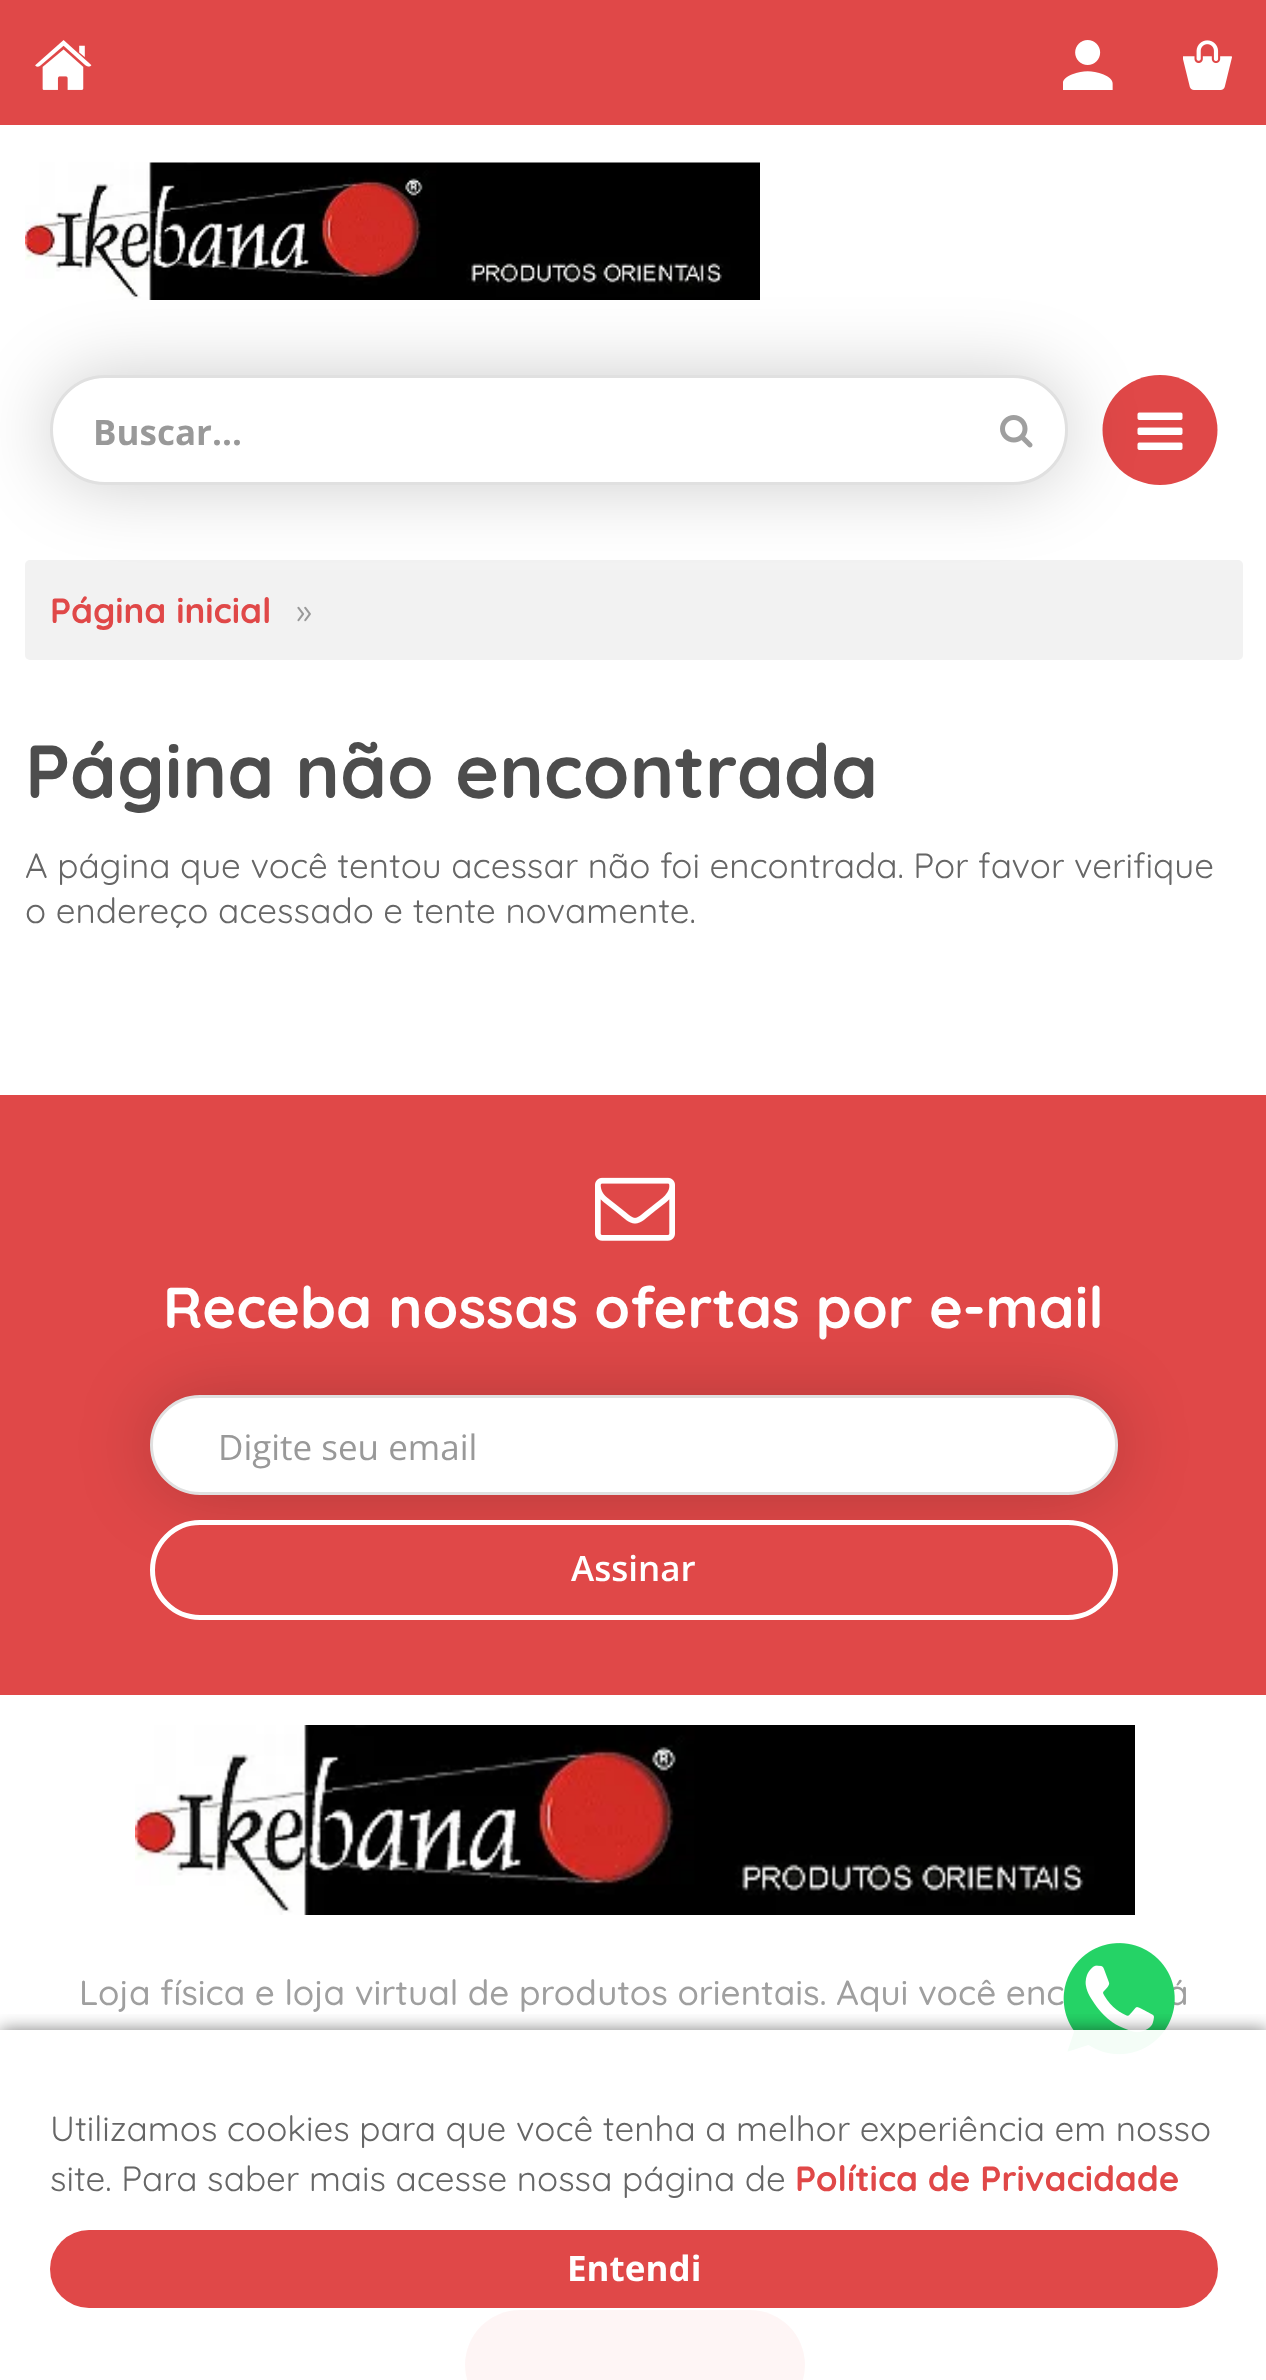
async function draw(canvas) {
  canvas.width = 1266;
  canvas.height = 2380;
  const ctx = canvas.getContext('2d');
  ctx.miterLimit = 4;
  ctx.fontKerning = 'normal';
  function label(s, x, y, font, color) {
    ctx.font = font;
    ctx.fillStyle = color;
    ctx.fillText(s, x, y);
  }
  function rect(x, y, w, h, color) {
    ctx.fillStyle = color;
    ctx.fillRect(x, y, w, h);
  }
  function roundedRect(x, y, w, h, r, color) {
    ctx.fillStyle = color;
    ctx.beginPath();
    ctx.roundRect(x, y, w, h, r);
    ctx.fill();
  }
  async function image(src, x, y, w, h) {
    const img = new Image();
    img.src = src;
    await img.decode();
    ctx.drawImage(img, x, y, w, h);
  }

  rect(0, 0, 1266, 2380, '#fff');
  rect(0, 0, 1266, 125, '#e04848');
  await image('assets/img1.png', 35, 40, 57, 50);
  await image('assets/img2.png', 1063, 40, 50, 50);
  await image('assets/img3.png', 1183, 40, 49, 50);
  await image('assets/img4.png', 25, 162, 735, 138);
  ctx.beginPath();
  ctx.ellipse(1160, 430, 57.5, 55, 0, 0, 2 * Math.PI);
  ctx.fill();
  await image('assets/img6.png', 1137, 412, 46, 38);
  roundedRect(25, 560, 1218, 100, 5, '#f2f2f2');
  ctx.fillStyle = '#00000033';
  ctx.filter = 'blur(37.5px)';
  ctx.beginPath();
  ctx.roundRect(50, 375, 1018, 110, 55);
  ctx.fill();
  ctx.filter = 'none';
  ctx.fillStyle = '#fff';
  ctx.beginPath();
  ctx.roundRect(51.5, 376.5, 1015, 107, 53.5);
  ctx.fill();
  ctx.strokeStyle = '#e0e0e0';
  ctx.lineWidth = 3;
  ctx.stroke();
  label('Buscar...', 93, 445, 'bold 35px Open Sans', '#999');
  await image('assets/img5.png', 1000, 415, 33, 33);
  label('Página inicial', 50, 623, 'bold 35px Quicksand', '#e04848');
  label('»', 296, 623, '35px Quicksand', '#999');
  label('Página não encontrada', 25, 798, 'bold 75px Quicksand', '#4d4d4d');
  label('A página que você tentou acessar não foi encontrada. Por favor verifique', 25, 878, '35px Quicksand', '#666');
  label('o endereço acessado e tente novamente.', 25, 923, '35px Quicksand', '#666');
  rect(0, 1095, 1266, 600, '#e04848');
  await image('assets/img7.png', 595, 1177, 80, 64);
  label('Receba nossas ofertas por e-mail', 163, 1328, 'bold 57.5px Quicksand', '#fff');
  ctx.fillStyle = '#00000033';
  ctx.filter = 'blur(37.5px)';
  ctx.beginPath();
  ctx.roundRect(150, 1395, 968, 100, 50);
  ctx.fill();
  ctx.filter = 'none';
  ctx.fillStyle = '#fff';
  ctx.beginPath();
  ctx.roundRect(151.5, 1396.5, 965, 97, 48.5);
  ctx.fill();
  ctx.stroke();
  label('Digite seu email', 218, 1460, '35px Open Sans', '#999');
  ctx.fillStyle = '#e04848';
  ctx.beginPath();
  ctx.roundRect(152.5, 1522.5, 963, 95, 47.5);
  ctx.fill();
  ctx.strokeStyle = '#fff';
  ctx.lineWidth = 5;
  ctx.stroke();
  label('Assinar', 571, 1581, '600 35px Open Sans', '#fff');
  await image('assets/img8.png', 135, 1725, 1000, 190);
  label('Loja física e loja virtual de produtos orientais. Aqui você enc', 79, 2005, '500 35px Quicksand', '#9f9f9f');
  label('á', 1167, 2005, '500 35px Quicksand', '#9f9f9f');
  roundedRect(465, 2310, 340, 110, 55, '#e04848');
  await image('assets/img9.png', 1063, 1943, 112, 112);
  ctx.save();
  ctx.beginPath();
  ctx.rect(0, 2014, 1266, 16);
  ctx.clip();
  ctx.fillStyle = '#00000080';
  ctx.filter = 'blur(9px)';
  ctx.beginPath();
  ctx.rect(0, 2030, 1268, 350);
  ctx.fill();
  ctx.filter = 'none';
  ctx.restore();
  rect(465, 2030, 700, 350, '#fffffff2');
  label('Utilizamos cookies para que você tenha a melhor experiência em nosso', 50, 2141, '35px Quicksand', '#666');
  label('site. Para saber mais acesse nossa página de', 50, 2191, '35px Quicksand', '#666');
  label('Política de Privacidade', 795, 2191, 'bold 35px Quicksand', '#e04848');
  roundedRect(50, 2230, 1168, 78, 39, '#e04848');
  label('Entendi', 567, 2281, 'bold 35px Open Sans', '#fff');
}

draw(document.querySelector('canvas'));
